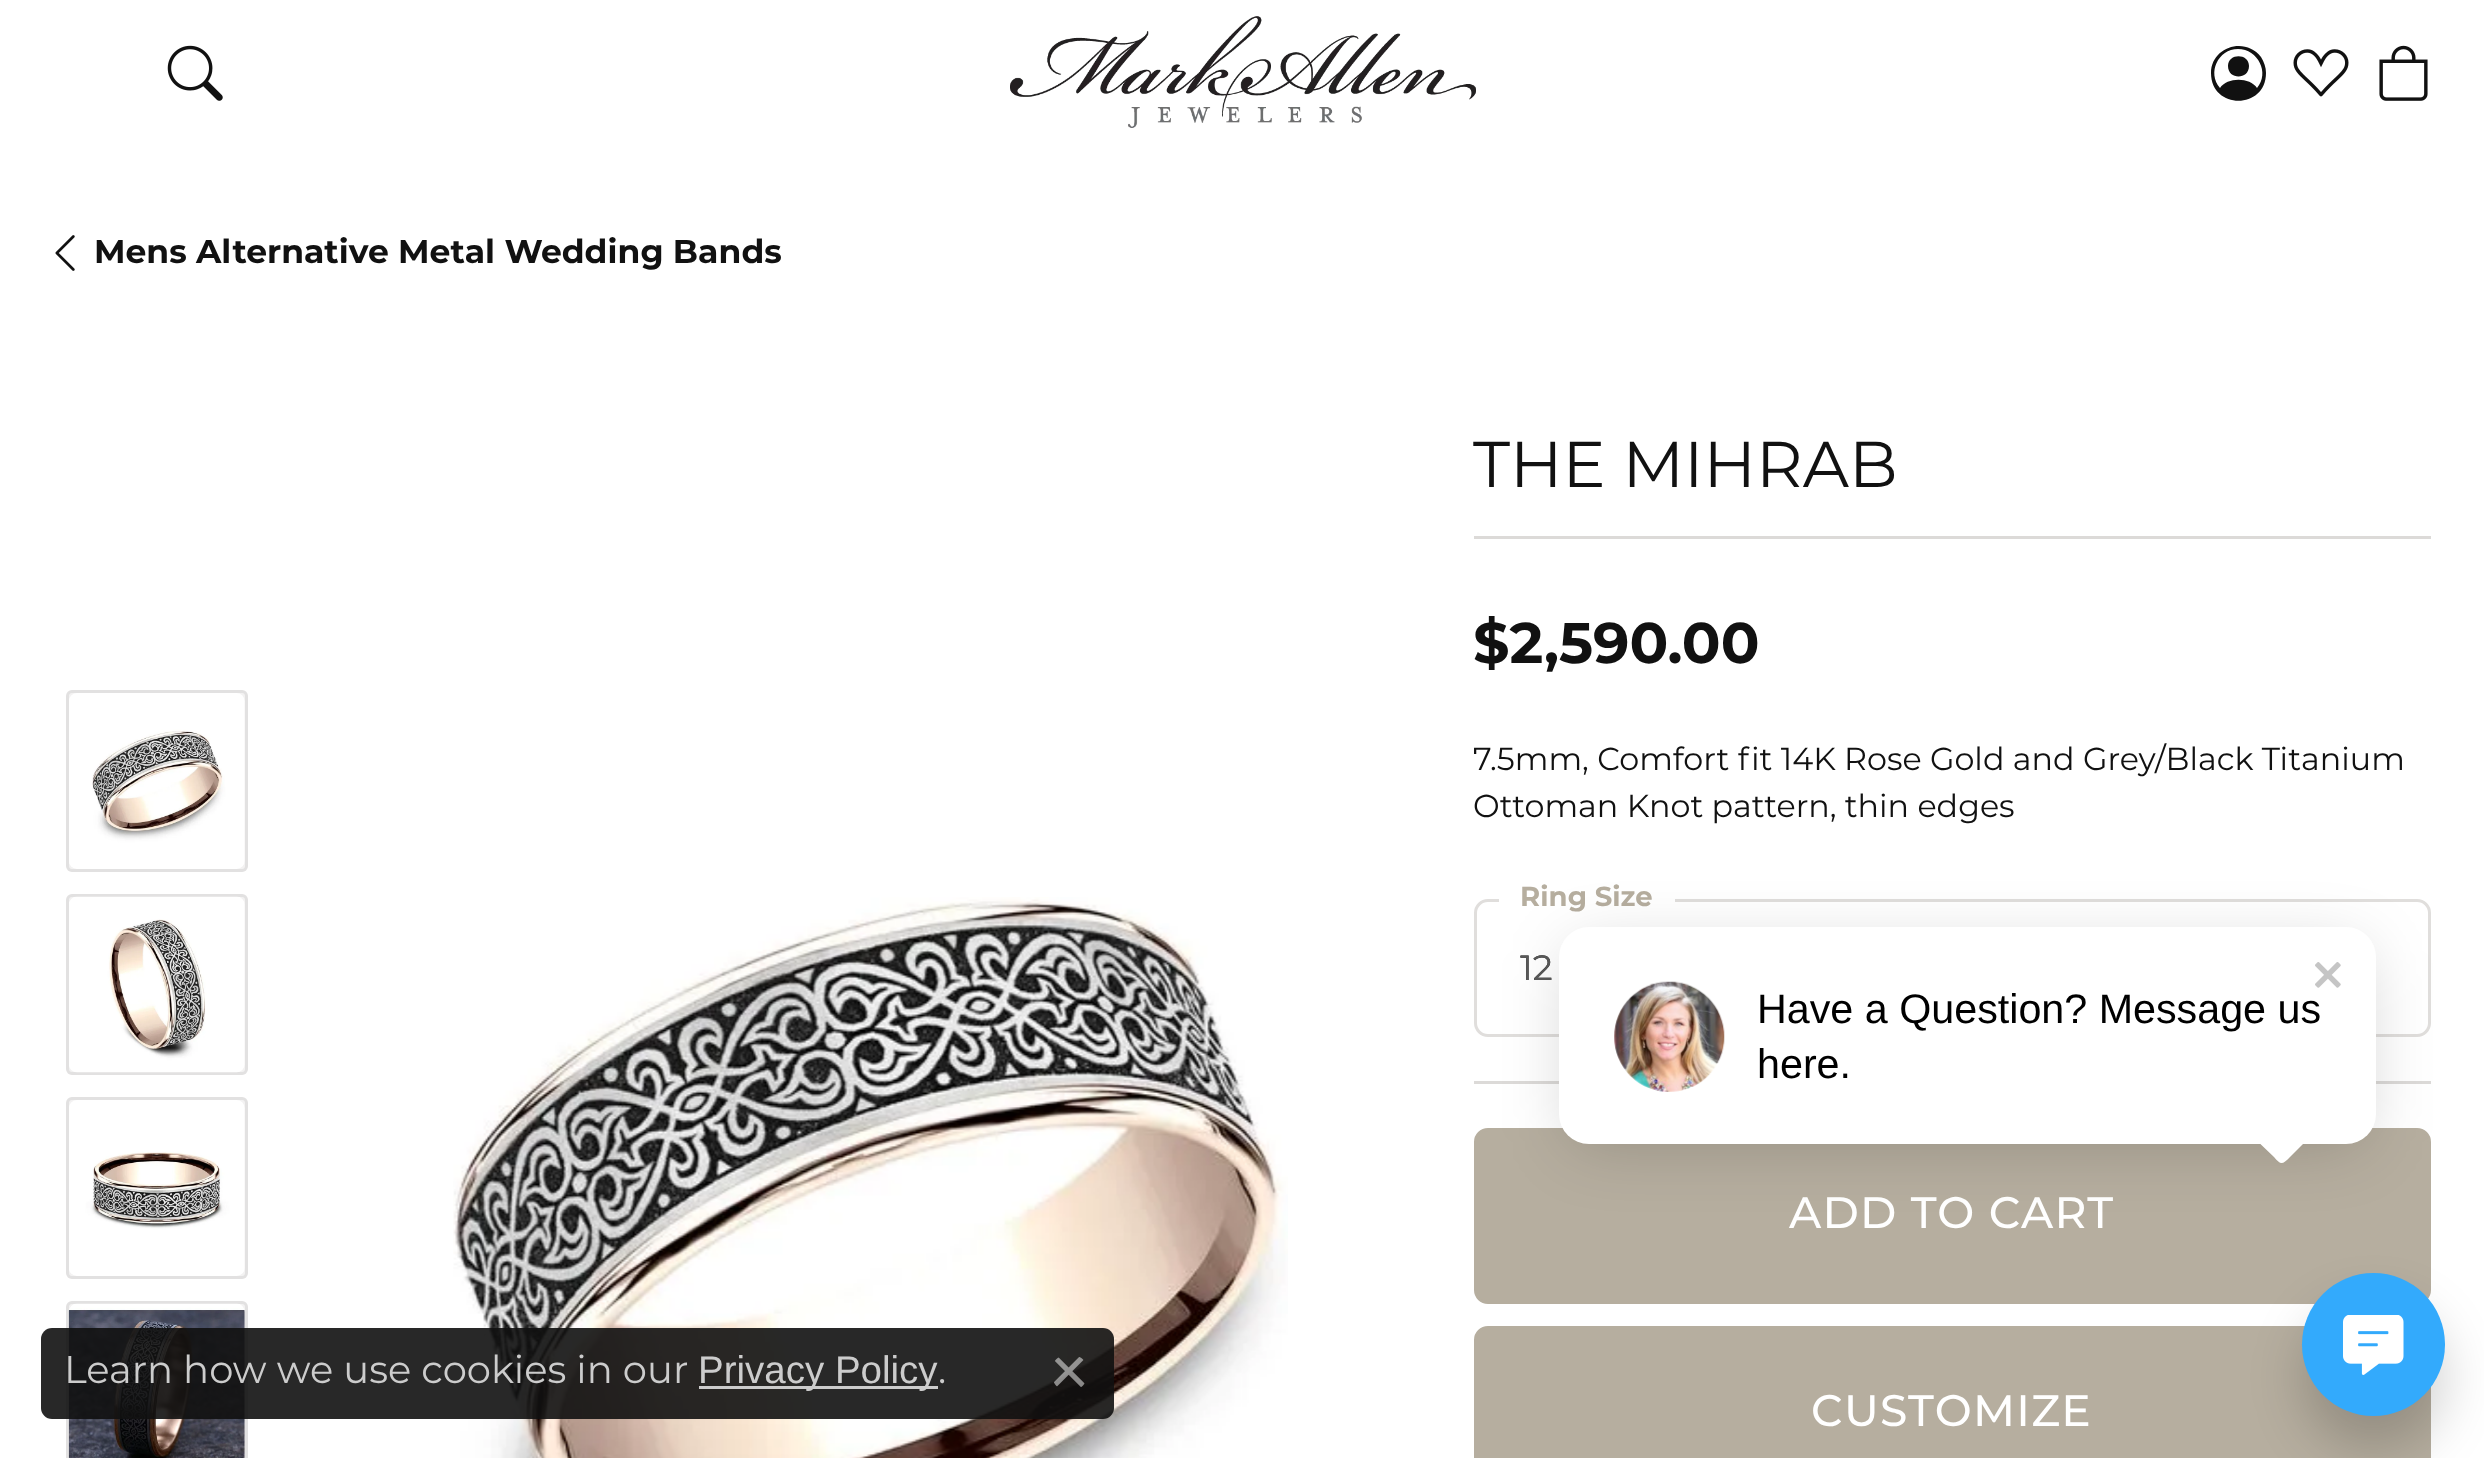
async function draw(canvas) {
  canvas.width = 2484;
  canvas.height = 1458;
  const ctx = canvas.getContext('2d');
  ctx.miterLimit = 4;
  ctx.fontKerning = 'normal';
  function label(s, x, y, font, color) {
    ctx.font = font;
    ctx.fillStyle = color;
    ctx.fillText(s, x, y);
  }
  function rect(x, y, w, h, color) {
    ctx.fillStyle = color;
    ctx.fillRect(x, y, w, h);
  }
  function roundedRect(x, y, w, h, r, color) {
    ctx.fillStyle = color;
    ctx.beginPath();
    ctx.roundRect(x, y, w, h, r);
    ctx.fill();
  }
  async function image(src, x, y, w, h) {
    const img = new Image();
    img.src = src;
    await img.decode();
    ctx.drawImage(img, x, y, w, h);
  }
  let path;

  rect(0, 0, 2484, 1458, '#fff');
  await image('assets/img1.png', 167, 45, 56, 56);
  await image('assets/img2.png', 1010, 16, 466, 112);
  ctx.fillStyle = '#111';
  path = new Path2D('M2249 66C2249 80 2228 80 2228 66C2228 53 2249 53 2249 66ZM2211 73C2211 47 2245 36 2261 57C2264 62 2266 67 2266 73C2266 110 2211 110 2211 73ZM2238 49C2218 49 2207 73 2220 88C2227 77 2250 77 2257 88C2270 73 2258 49 2238 49Z');
  ctx.fill(path);
  await image('assets/img3.png', 2293, 49, 56, 48);
  await image('assets/img4.png', 2379, 45, 49, 56);
  await image('assets/img5.png', 55, 235, 20, 36);
  label('Mens Alternative Metal Wedding Bands', 94, 263, 'bold 33px Montserrat', '#111');
  roundedRect(66, 690, 182, 182, 6, '#f3f2f2');
  ctx.beginPath();
  ctx.roundRect(67.5, 691.5, 179, 179, 4.5);
  ctx.strokeStyle = '#11111112';
  ctx.lineWidth = 3;
  ctx.stroke();
  await image('assets/img6.png', 69, 693, 176, 176);
  roundedRect(66, 894, 182, 181, 6, '#f3f2f2');
  ctx.beginPath();
  ctx.roundRect(67.5, 895.5, 179, 178, 4.5);
  ctx.stroke();
  await image('assets/img7.png', 69, 896, 176, 177);
  roundedRect(66, 1097, 182, 182, 6, '#f3f2f2');
  ctx.beginPath();
  ctx.roundRect(67.5, 1098.5, 179, 179, 4.5);
  ctx.stroke();
  await image('assets/img8.png', 69, 1100, 176, 176);
  roundedRect(66, 1301, 182, 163, 6, '#f3f2f2');
  ctx.beginPath();
  ctx.roundRect(67.5, 1302.5, 179, 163, 4.5);
  ctx.stroke();
  await image('assets/img9.png', 68, 1303, 177, 155);
  await image('assets/img10.png', 453, 897, 835, 561);
  label('THE MIHRAB', 1473, 487, '64.5px Montserrat', '#111');
  rect(1474, 536, 957, 3, '#dcdad8');
  label('$2,590.00', 1473, 663, 'bold 57.25px Montserrat', '#111');
  label('7.5mm, Comfort fit 14K Rose Gold and Grey/Black Titanium', 1473, 770, '31.75px Montserrat', '#111');
  label('Ottoman Knot pattern, thin edges', 1473, 817, '31.75px Montserrat', '#111');
  ctx.beginPath();
  ctx.roundRect(1475.5, 900.5, 954, 135, 12.5);
  ctx.strokeStyle = '#e0dedc';
  ctx.stroke();
  rect(1499, 899, 176, 3, '#fff');
  label('Ring Size', 1520, 906, 'bold 27.5px Montserrat', '#b6ae9f');
  label('12', 1520, 980, '35px Montserrat', '#111');
  ctx.save();
  ctx.beginPath();
  ctx.rect(1521, 924, 863, 94);
  ctx.clip();
  label('12', 1520, 980, '35px Montserrat', '#5a5a5a');
  ctx.restore();
  rect(1474, 1081, 957, 3, '#dcdad8');
  ctx.fillStyle = '#b6ae9f';
  ctx.beginPath();
  ctx.roundRect(1475.5, 1129.5, 954, 173, 12.5);
  ctx.fill();
  ctx.strokeStyle = '#b6ae9f';
  ctx.stroke();
  ctx.letterSpacing = '1.25px';
  label('ADD TO CART', 1789, 1228, '500 44px Montserrat', '#fff');
  ctx.fillStyle = '#b6ae9f';
  ctx.beginPath();
  ctx.roundRect(1475.5, 1327.5, 954, 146, 12.5);
  ctx.fill();
  ctx.stroke();
  label('CUSTOMIZE', 1811, 1426, '500 44px Montserrat', '#fff');
  ctx.fillStyle = '#0000002e';
  ctx.filter = 'blur(33px)';
  ctx.beginPath();
  ctx.roundRect(1570, 949, 795, 195, 19);
  ctx.fill();
  ctx.filter = 'none';
  roundedRect(1559, 927, 817, 217, 30, '#fff');
  await image('assets/img11.png', 2315, 962, 26, 26);
  await image('assets/img12.png', 1614, 981, 111, 111);
  ctx.letterSpacing = '0px';
  label('Have a Question? Message us', 1757, 1023, '41.25px Liberation Sans', '#000');
  label('here.', 1757, 1078, '41.25px Liberation Sans', '#000');
  ctx.fillStyle = '#fff';
  path = new Path2D('M2252 1136L2274 1157C2281 1165 2282 1165 2290 1157L2311 1136Z');
  ctx.fill(path, 'evenodd');
  roundedRect(41, 1328, 1073, 91, 11, '#111111e6');
  label('Learn how we use cookies in our', 64, 1383, '38.5px Montserrat', '#ccc');
  rect(699, 1386, 239, 3, '#ccc');
  label('Privacy Policy', 698, 1383, '38.5px Liberation Sans', '#ccc');
  label('.', 938, 1383, '38.5px Montserrat', '#ccc');
  await image('assets/img13.png', 1054, 1357, 31, 30);
  ctx.fillStyle = '#0000002e';
  ctx.filter = 'blur(26px)';
  ctx.beginPath();
  ctx.roundRect(2302, 1306, 143, 143, 71.5);
  ctx.fill();
  ctx.filter = 'none';
  ctx.fillStyle = '#33aafc';
  ctx.beginPath();
  ctx.arc(2373.5, 1344.5, 71.5, 0, 2 * Math.PI);
  ctx.fill();
  await image('assets/img14.png', 2343, 1315, 61, 60);
}

draw(document.querySelector('canvas'));
